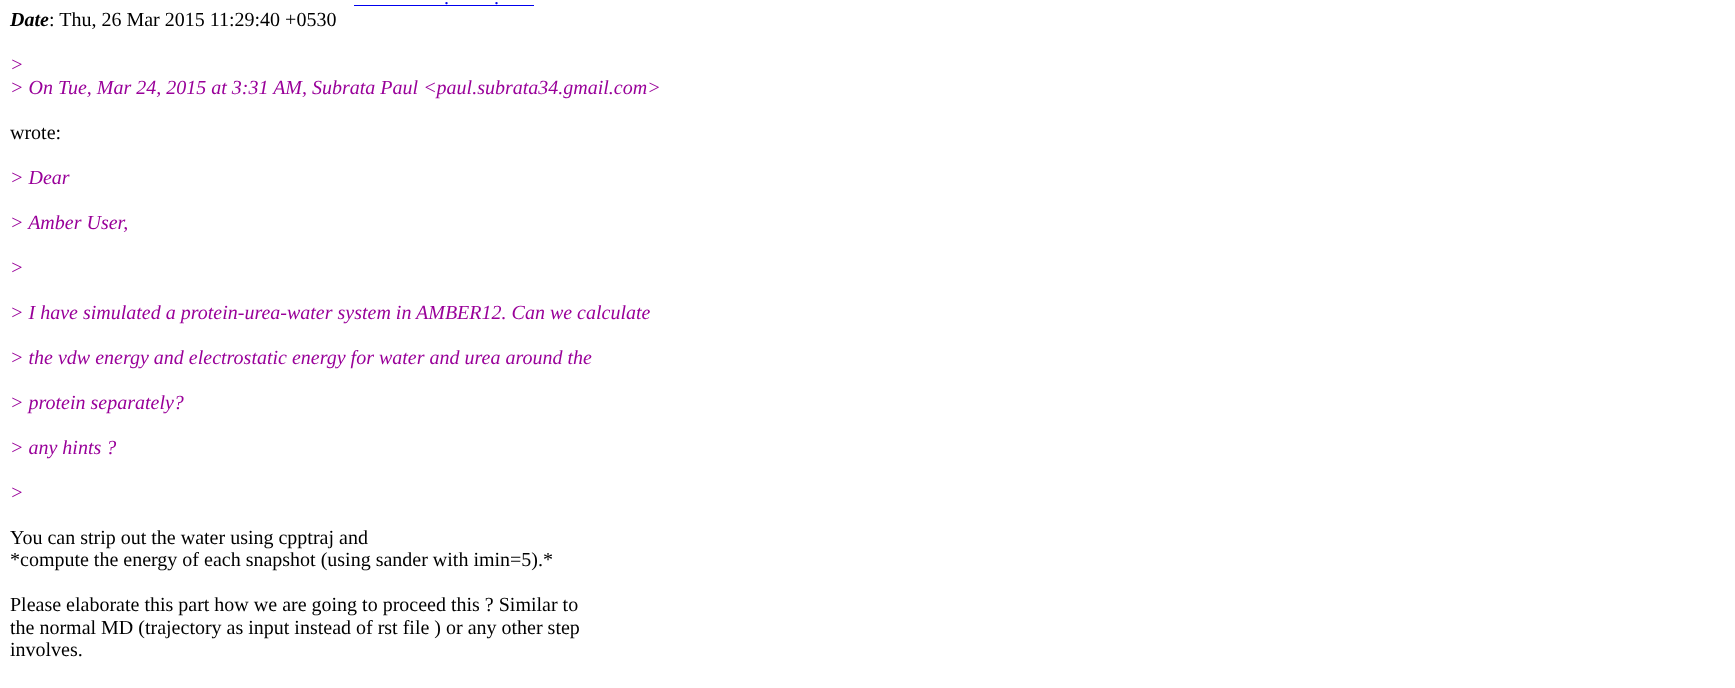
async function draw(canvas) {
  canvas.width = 1735;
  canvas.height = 688;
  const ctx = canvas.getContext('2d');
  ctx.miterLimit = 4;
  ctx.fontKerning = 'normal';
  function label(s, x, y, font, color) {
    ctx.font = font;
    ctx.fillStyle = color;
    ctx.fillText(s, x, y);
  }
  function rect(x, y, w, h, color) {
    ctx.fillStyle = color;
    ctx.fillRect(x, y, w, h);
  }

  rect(0, 0, 1735, 688, '#fff');
  label('.', 444, 4, '20px Liberation Serif', '#00e');
  rect(354, 5, 180, 1, '#00e');
  label('.', 494, 4, '20px Liberation Serif', '#00e');
  label('Date', 10, 26, 'italic bold 20px Liberation Serif', '#000');
  label(': Thu, 26 Mar 2015 11:29:40 +0530', 49, 26, '20px Liberation Serif', '#000');
  label('>', 10, 71, 'italic 20px Liberation Serif', '#909');
  label('> On Tue, Mar 24, 2015 at 3:31 AM, Subrata Paul <paul.subrata34.gmail.com>', 10, 94, 'italic 20px Liberation Serif', '#909');
  label('wrote:', 10, 139, '20px Liberation Serif', '#000');
  label('> Dear', 10, 184, 'italic 20px Liberation Serif', '#909');
  label('> Amber User,', 10, 229, 'italic 20px Liberation Serif', '#909');
  label('>', 10, 274, 'italic 20px Liberation Serif', '#909');
  label('> I have simulated a protein-urea-water system in AMBER12. Can we calculate', 10, 319, 'italic 20px Liberation Serif', '#909');
  label('> the vdw energy and electrostatic energy for water and urea around the', 10, 364, 'italic 20px Liberation Serif', '#909');
  label('> protein separately?', 10, 409, 'italic 20px Liberation Serif', '#909');
  label('> any hints ?', 10, 454, 'italic 20px Liberation Serif', '#909');
  label('>', 10, 499, 'italic 20px Liberation Serif', '#909');
  label('You can strip out the water using cpptraj and', 10, 544, '20px Liberation Serif', '#000');
  label('*compute the energy of each snapshot (using sander with imin=5).*', 10, 566, '20px Liberation Serif', '#000');
  label('Please elaborate this part how we are going to proceed this ? Similar to', 10, 611, '20px Liberation Serif', '#000');
  label('the normal MD (trajectory as input instead of rst file ) or any other step', 10, 634, '20px Liberation Serif', '#000');
  label('involves.', 10, 656, '20px Liberation Serif', '#000');
}

draw(document.querySelector('canvas'));
